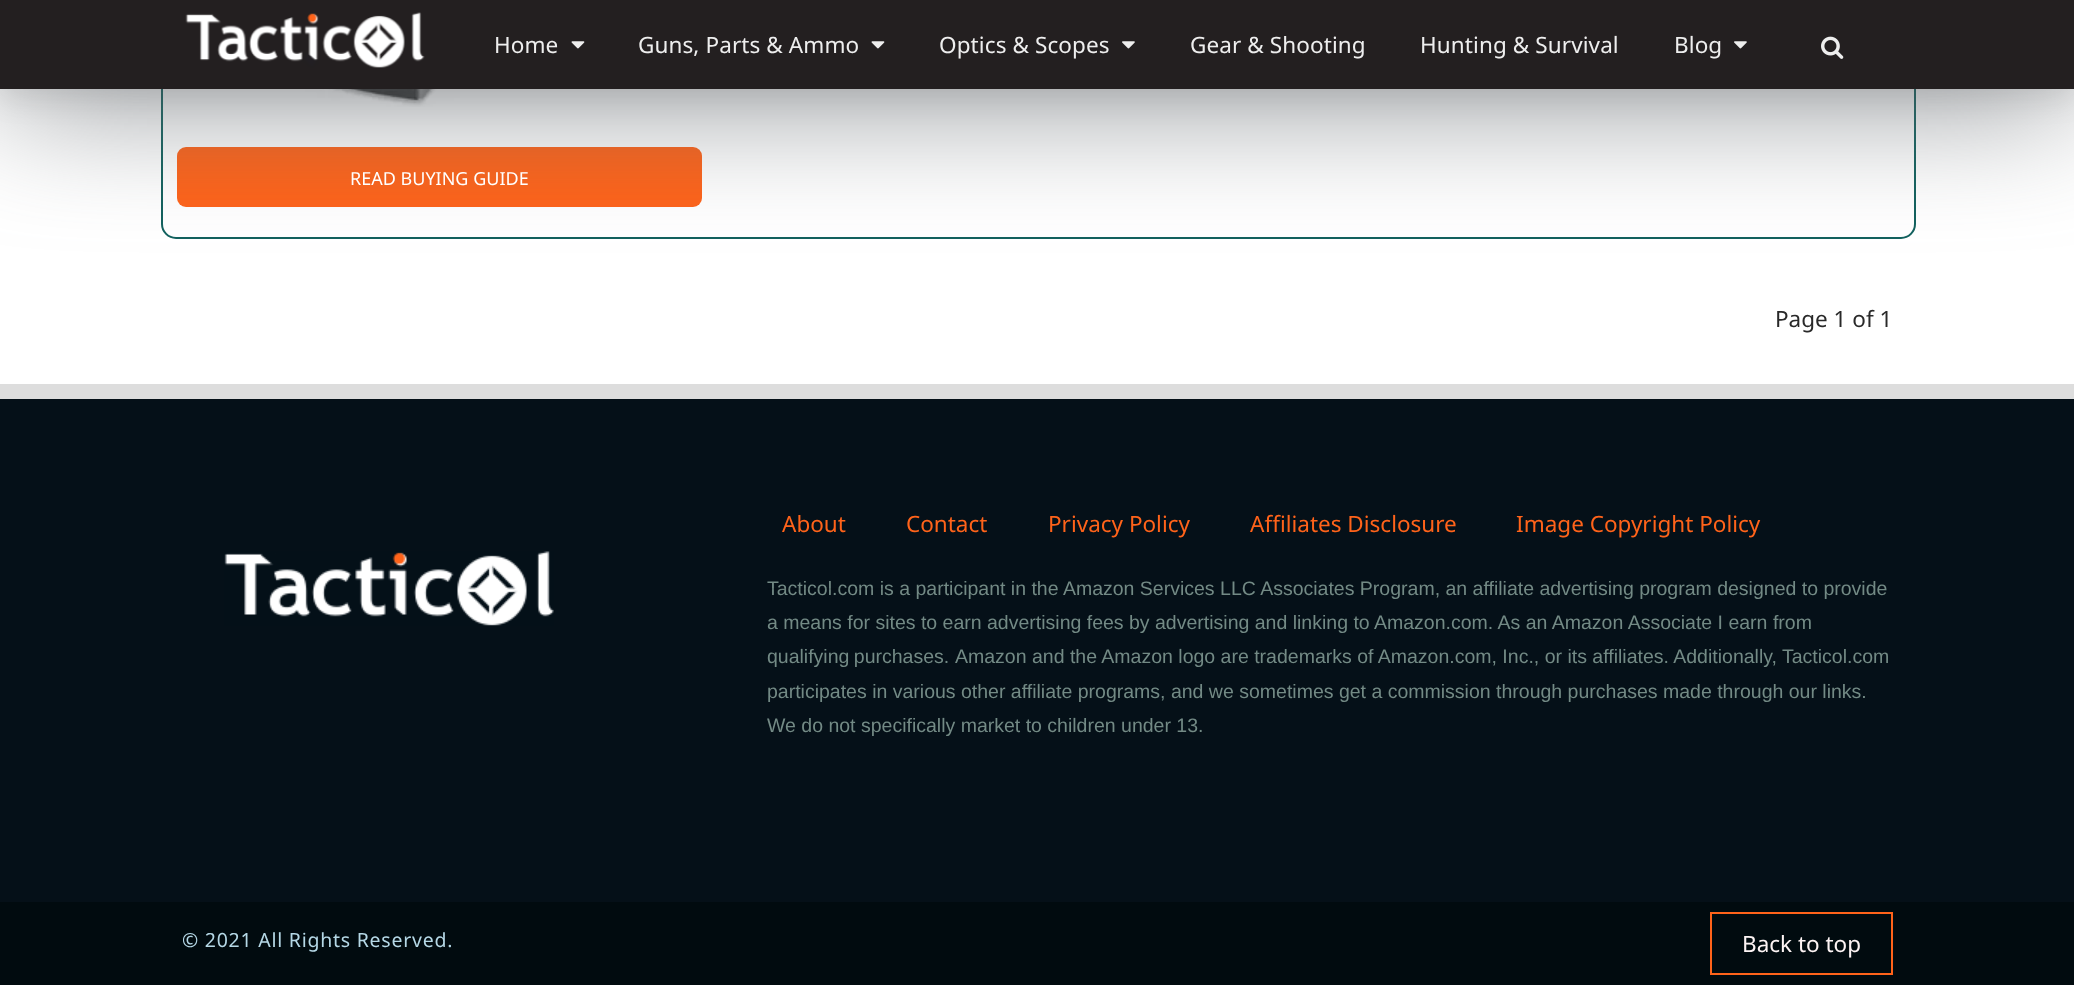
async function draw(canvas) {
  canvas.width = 2074;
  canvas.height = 985;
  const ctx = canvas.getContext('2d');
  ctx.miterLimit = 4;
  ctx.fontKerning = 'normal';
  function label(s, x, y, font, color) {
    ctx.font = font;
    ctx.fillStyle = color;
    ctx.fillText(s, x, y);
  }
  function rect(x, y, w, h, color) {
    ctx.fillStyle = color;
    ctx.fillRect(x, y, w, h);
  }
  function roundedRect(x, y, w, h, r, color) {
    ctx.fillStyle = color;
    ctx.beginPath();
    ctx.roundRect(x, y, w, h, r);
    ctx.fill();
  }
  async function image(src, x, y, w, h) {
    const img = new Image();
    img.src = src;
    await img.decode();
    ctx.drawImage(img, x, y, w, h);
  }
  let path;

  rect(0, 0, 2074, 985, '#fff');
  ctx.beginPath();
  ctx.roundRect(162, -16, 1753, 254, 14);
  ctx.strokeStyle = '#12615e';
  ctx.lineWidth = 2;
  ctx.stroke();
  await image('assets/img5.png', 270, 89, 243, 18);
  roundedRect(177, 147, 525, 60, 9, '#ff6319');
  ctx.fillStyle = '#61666ce6';
  ctx.filter = 'blur(67.5px)';
  ctx.beginPath();
  ctx.rect(0, 3, 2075, 89);
  ctx.fill();
  ctx.filter = 'none';
  rect(0, 0, 2074, 89, '#231f20');
  await image('assets/img2.png', 871, 41, 14, 8);
  await image('assets/img3.png', 1122, 41, 13, 8);
  ctx.save();
  path = new Path2D('M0 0H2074V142H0ZM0 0H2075V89H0Z');
  ctx.clip(path, 'evenodd');
  ctx.fillStyle = '#0000001a';
  ctx.filter = 'blur(15px)';
  ctx.beginPath();
  ctx.rect(0, 8, 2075, 88);
  ctx.fill();
  ctx.filter = 'none';
  ctx.restore();
  await image('assets/img1.png', 185, 12, 240, 56);
  ctx.letterSpacing = '0.1px';
  label('Home', 494, 53, '22.5px Noto Sans', '#eee');
  await image('assets/img2.png', 571, 41, 14, 8);
  label('Guns, Parts & Ammo', 638, 53, '22.5px Noto Sans', '#eee');
  label('Optics & Scopes', 939, 53, '22.5px Noto Sans', '#eee');
  label('Gear & Shooting', 1190, 53, '22.5px Noto Sans', '#eee');
  label('Hunting & Survival', 1420, 53, '22.5px Noto Sans', '#eee');
  label('Blog', 1674, 53, '22.5px Noto Sans', '#eee');
  await image('assets/img3.png', 1734, 41, 13, 8);
  await image('assets/img4.png', 1821, 36, 23, 23);
  ctx.letterSpacing = '0px';
  label('READ BUYING GUIDE', 350, 185, '18px Noto Sans', '#fff');
  label('Page 1 of 1', 1775, 327, '22.5px Noto Sans', '#292929');
  rect(0, 399, 2074, 503, '#051018');
  rect(0, 384, 2074, 15, '#ddd');
  await image('assets/img6.png', 224, 551, 330, 75);
  label('About', 782, 532, '22.5px Noto Sans', '#ff631a');
  label('Contact', 906, 532, '22.5px Noto Sans', '#ff631a');
  label('Privacy Policy', 1048, 532, '22.5px Noto Sans', '#ff631a');
  label('Affiliates Disclosure', 1250, 532, '22.5px Noto Sans', '#ff631a');
  label('Image Copyright Policy', 1516, 532, '22.5px Noto Sans', '#ff631a');
  label('Tacticol.com is a participant in the Amazon Services LLC Associates Program, an affiliate advertising program designed to provide', 767, 595, '19.5px Liberation Sans', '#738a85');
  label('a means for sites to earn advertising fees by advertising and linking to Amazon.com. As an Amazon Associate I earn from', 767, 629, '19.5px Liberation Sans', '#738a85');
  ctx.wordSpacing = '-1px';
  label('qualifying purchases.', 767, 663, '19.5px Liberation Sans', '#738a85');
  ctx.wordSpacing = '0px';
  label('Amazon and the Amazon logo are trademarks of Amazon.com, Inc., or its affiliates. Additionally, Tacticol.com', 955, 663, '19.5px Liberation Sans', '#738a85');
  label('participates in various other affiliate programs, and we sometimes get a commission through purchases made through our links.', 767, 698, '19.5px Liberation Sans', '#738a85');
  label('We do not specifically market to children under 13.', 767, 732, '19.5px Liberation Sans', '#738a85');
  rect(768, 588, 120, 2, '#00000014');
  rect(0, 902, 2074, 83, '#010b0f');
  ctx.letterSpacing = '0.75px';
  label('© 2021 All Rights Reserved.', 182, 947, '19.5px Noto Sans', '#b5d8e6');
  ctx.strokeStyle = '#ff631a';
  ctx.strokeRect(1711, 913, 181, 61);
  ctx.letterSpacing = '0px';
  label('Back to top', 1742, 952, '22.5px Noto Sans', '#fdf4f4');
}

draw(document.querySelector('canvas'));
